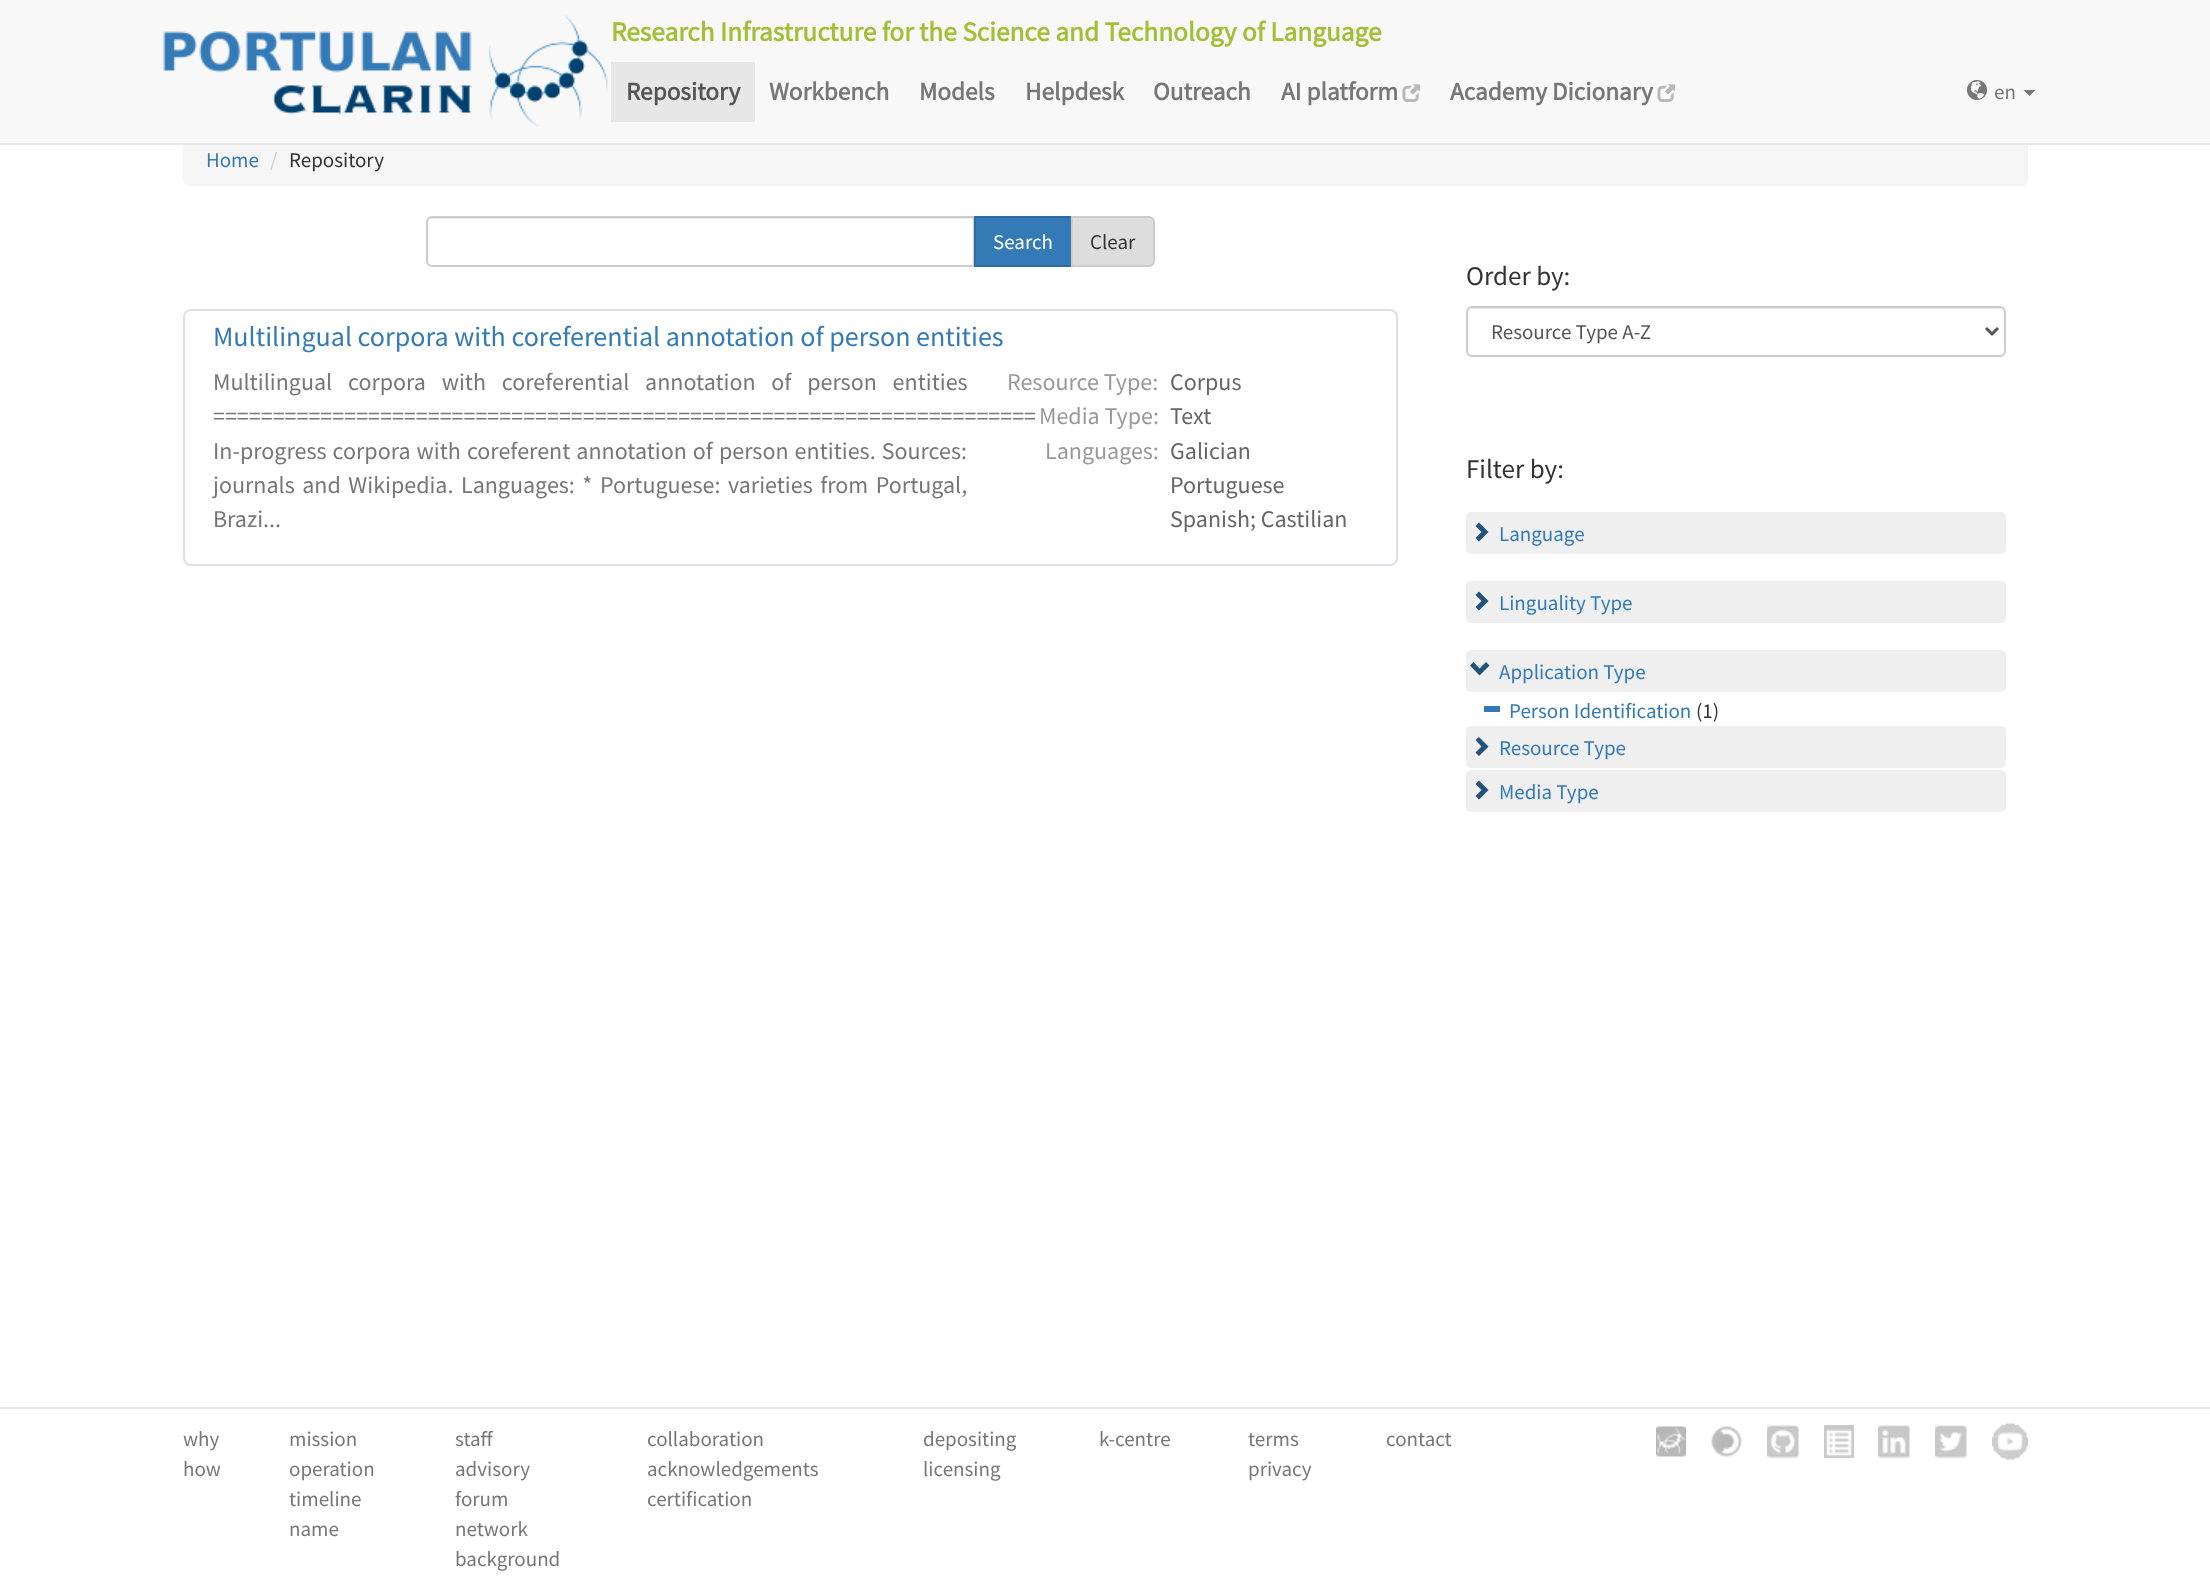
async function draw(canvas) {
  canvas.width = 2210;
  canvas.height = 1588;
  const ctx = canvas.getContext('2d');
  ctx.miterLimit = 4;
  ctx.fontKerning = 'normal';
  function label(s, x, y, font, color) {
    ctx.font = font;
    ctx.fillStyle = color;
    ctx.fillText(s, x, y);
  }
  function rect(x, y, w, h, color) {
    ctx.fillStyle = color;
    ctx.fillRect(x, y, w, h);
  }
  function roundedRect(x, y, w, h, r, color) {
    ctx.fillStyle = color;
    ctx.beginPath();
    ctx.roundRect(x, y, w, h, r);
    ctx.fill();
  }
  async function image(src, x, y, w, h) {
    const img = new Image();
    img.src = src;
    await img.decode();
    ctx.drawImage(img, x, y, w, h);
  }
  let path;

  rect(0, 0, 2210, 1588, '#fff');
  roundedRect(183, 132, 1845, 54, 6, '#f5f5f5');
  rect(0, 0, 2210, 143, '#f8f8f8');
  rect(0, 143, 2210, 2, '#e7e7e7');
  await image('assets/img1.png', 163, 15, 445, 112);
  label('Research Infrastructure for the Science and Technology of Language', 611, 41, 'bold 27.3px Source Sans Pro', '#a2c037');
  rect(611, 62, 144, 60, '#e7e7e7');
  label('Repository', 626, 100, 'bold 25.25px Source Sans Pro', '#555');
  label('Workbench', 769, 100, 'bold 25.25px Source Sans Pro', '#777');
  label('Models', 919, 100, 'bold 25.25px Source Sans Pro', '#777');
  label('Helpdesk', 1025, 100, 'bold 25.25px Source Sans Pro', '#777');
  label('Outreach', 1153, 100, 'bold 25.25px Source Sans Pro', '#777');
  label('AI platform', 1281, 100, 'bold 25.25px Source Sans Pro', '#777');
  await image('assets/img2.png', 1402, 84, 19, 18);
  label('Academy Dicionary', 1450, 100, 'bold 25.25px Source Sans Pro', '#777');
  await image('assets/img2.png', 1657, 84, 19, 18);
  await image('assets/img3.png', 1966, 79, 22, 21);
  label('en', 1994, 99, '21px Source Sans Pro', '#777');
  path = new Path2D('M2023.5 90H2035.5L2029.5 96Z');
  ctx.fill(path);
  label('Home', 206, 167, '21px Source Sans Pro', '#337ab7');
  label('/', 270, 167, '21px Source Sans Pro', '#ccc');
  label('Repository', 289, 167, '21px Source Sans Pro', '#333');
  ctx.fillStyle = '#ececec';
  path = new Path2D('M432 219H974V218H433C430 218 428 221 428 224C428 221 430 219 432 219Z');
  ctx.fill(path);
  ctx.beginPath();
  ctx.roundRect(427, 217, 547, 49, [5, 0, 0, 5]);
  ctx.strokeStyle = '#ccc';
  ctx.lineWidth = 2;
  ctx.stroke();
  ctx.fillStyle = '#337ab7';
  ctx.beginPath();
  ctx.rect(975, 217, 97, 49);
  ctx.fill();
  ctx.strokeStyle = '#2e6da4';
  ctx.stroke();
  label('Search', 993, 249, '21px Source Sans Pro', '#fff');
  ctx.fillStyle = '#ddd';
  ctx.beginPath();
  ctx.roundRect(1072, 217, 82, 49, [0, 5, 5, 0]);
  ctx.fill();
  ctx.strokeStyle = '#ccc';
  ctx.stroke();
  label('Clear', 1090, 249, '21px Source Sans Pro', '#333');
  ctx.beginPath();
  ctx.roundRect(184, 310, 1213, 255, 7);
  ctx.strokeStyle = '#dde';
  ctx.stroke();
  label('Multilingual corpora with coreferential annotation of person entities', 213, 346, '28px Source Sans Pro', '#337ab7');
  ctx.wordSpacing = '11px';
  label('Multilingual corpora with coreferential annotation of person entities', 213, 390, '24px Source Sans Pro', '#777');
  ctx.wordSpacing = '0px';
  label('=====================================================================', 213, 424, '24px Source Sans Pro', '#777');
  ctx.wordSpacing = '1.25px';
  label('In-progress corpora with coreferent annotation of person entities. Sources:', 213, 459, '24px Source Sans Pro', '#777');
  ctx.wordSpacing = '2.75px';
  label('journals and Wikipedia. Languages: * Portuguese: varieties from Portugal,', 213, 493, '24px Source Sans Pro', '#777');
  ctx.wordSpacing = '0px';
  label('Brazi...', 213, 527, '24px Source Sans Pro', '#777');
  label('Resource Type:', 1007, 390, '24px Source Sans Pro', '#999');
  label('Corpus', 1170, 390, '24px Source Sans Pro', '#666');
  label('Media Type:', 1039, 424, '24px Source Sans Pro', '#999');
  label('Text', 1170, 424, '24px Source Sans Pro', '#666');
  label('Languages:', 1045, 459, '24px Source Sans Pro', '#999');
  label('Galician', 1170, 459, '24px Source Sans Pro', '#666');
  label('Portuguese', 1170, 493, '24px Source Sans Pro', '#666');
  label('Spanish; Castilian', 1170, 527, '24px Source Sans Pro', '#666');
  label('Order by:', 1466, 285, '27px Source Sans Pro', '#333');
  ctx.fillStyle = '#ececec';
  path = new Path2D('M1472 309H2000C2002 309 2004 311 2004 314C2004 311 2002 308 1999 308H1472C1469 308 1467 311 1467 314C1467 311 1469 309 1472 309Z');
  ctx.fill(path);
  ctx.beginPath();
  ctx.roundRect(1467, 307, 538, 49, 5);
  ctx.strokeStyle = '#ccc';
  ctx.stroke();
  path = new Path2D('M1986 328L1992 334L1998 328');
  ctx.strokeStyle = '#555';
  ctx.lineWidth = 3;
  ctx.stroke(path);
  label('Resource Type A-Z', 1491, 339, '21px Source Sans Pro', '#555');
  label('Filter by:', 1466, 478, '27px Source Sans Pro', '#333');
  roundedRect(1466, 512, 540, 42, 5, '#efefef');
  ctx.fillStyle = '#23527c';
  path = new Path2D('M1488.5 532L1479 541.5L1475.5 538L1481.5 532L1475.5 526L1479 522.5Z');
  ctx.fill(path);
  label('Language', 1499, 541, '21px Source Sans Pro', '#337ab7');
  roundedRect(1466, 581, 540, 42, 5, '#efefef');
  ctx.fillStyle = '#23527c';
  path = new Path2D('M1488.5 601L1479 610.5L1475.5 607L1481.5 601L1475.5 595L1479 591.5Z');
  ctx.fill(path);
  label('Linguality Type', 1499, 610, '21px Source Sans Pro', '#337ab7');
  roundedRect(1466, 650, 540, 42, 5, '#efefef');
  ctx.fillStyle = '#23527c';
  path = new Path2D('M1489.5 665.5L1479.5 675.5L1470 665.5L1473.5 662L1479.5 668.5L1486 662Z');
  ctx.fill(path);
  label('Application Type', 1499, 679, '21px Source Sans Pro', '#337ab7');
  label('Person Identification', 1509, 718, '21px Source Sans Pro', '#337ab7');
  rect(1484, 706, 16, 6, '#337ab7');
  label('(1)', 1696, 718, '21px Source Sans Pro', '#333');
  roundedRect(1466, 726, 540, 42, 5, '#efefef');
  ctx.fillStyle = '#23527c';
  path = new Path2D('M1488.5 746.5L1479 756L1475.5 752.5L1481.5 746.5L1475.5 740L1479 737Z');
  ctx.fill(path);
  label('Resource Type', 1499, 755, '21px Source Sans Pro', '#337ab7');
  roundedRect(1466, 770, 540, 42, 5, '#efefef');
  ctx.fillStyle = '#23527c';
  path = new Path2D('M1488.5 790L1479 799.5L1475.5 796L1481.5 790L1475.5 784L1479 780.5Z');
  ctx.fill(path);
  label('Media Type', 1499, 799, '21px Source Sans Pro', '#337ab7');
  rect(0, 1407, 2210, 2, '#e7e7e7');
  label('why', 183, 1446, '21px Source Sans Pro', '#777');
  label('how', 183, 1476, '21px Source Sans Pro', '#777');
  label('mission', 289, 1446, '21px Source Sans Pro', '#777');
  label('operation', 289, 1476, '21px Source Sans Pro', '#777');
  label('timeline', 289, 1506, '21px Source Sans Pro', '#777');
  label('name', 289, 1536, '21px Source Sans Pro', '#777');
  label('staff', 455, 1446, '21px Source Sans Pro', '#777');
  label('advisory', 455, 1476, '21px Source Sans Pro', '#777');
  label('forum', 455, 1506, '21px Source Sans Pro', '#777');
  label('network', 455, 1536, '21px Source Sans Pro', '#777');
  label('background', 455, 1566, '21px Source Sans Pro', '#777');
  label('collaboration', 647, 1446, '21px Source Sans Pro', '#777');
  label('acknowledgements', 647, 1476, '21px Source Sans Pro', '#777');
  label('certification', 647, 1506, '21px Source Sans Pro', '#777');
  label('depositing', 923, 1446, '21px Source Sans Pro', '#777');
  label('licensing', 923, 1476, '21px Source Sans Pro', '#777');
  label('k-centre', 1099, 1446, '21px Source Sans Pro', '#777');
  label('terms', 1248, 1446, '21px Source Sans Pro', '#777');
  label('privacy', 1248, 1476, '21px Source Sans Pro', '#777');
  label('contact', 1386, 1446, '21px Source Sans Pro', '#777');
  await image('assets/img4.png', 1656, 1426, 30, 31);
  await image('assets/img5.png', 1711, 1426, 31, 31);
  await image('assets/img6.png', 1767, 1425, 32, 34);
  await image('assets/img7.png', 1824, 1425, 30, 33);
  await image('assets/img8.png', 1878, 1425, 32, 34);
  await image('assets/img9.png', 1935, 1425, 32, 34);
  await image('assets/img10.png', 1992, 1423, 36, 37);
}

draw(document.querySelector('canvas'));
